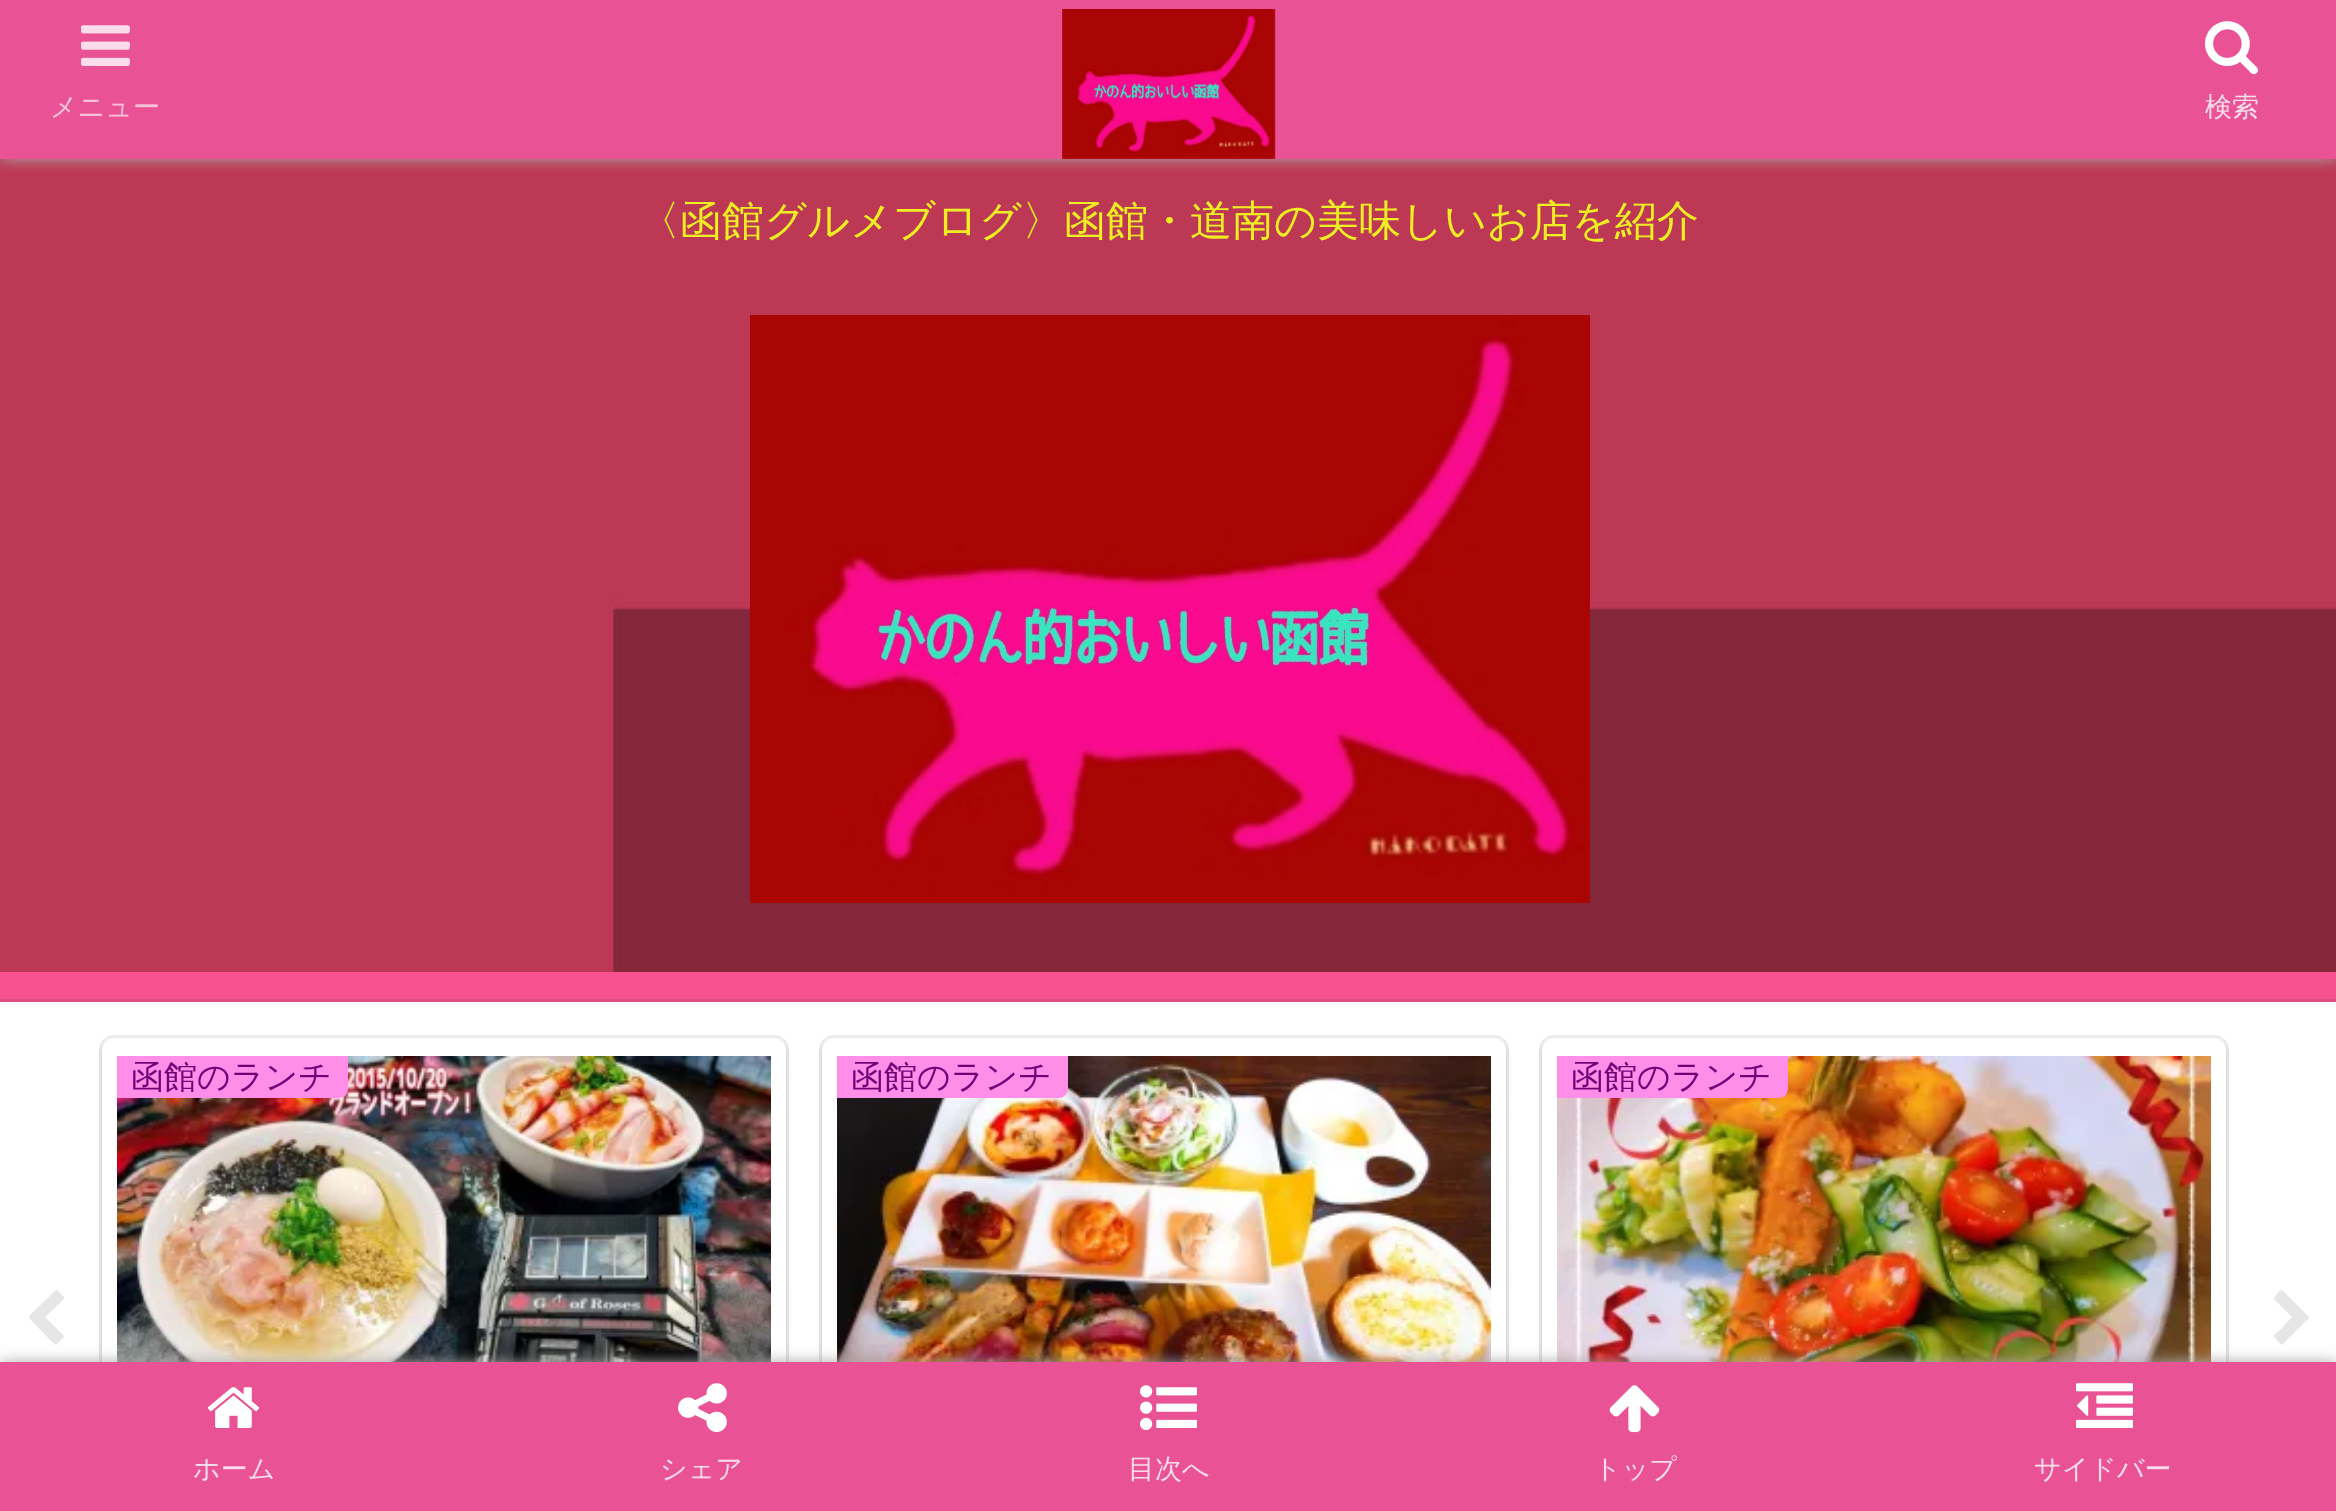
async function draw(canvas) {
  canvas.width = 2336;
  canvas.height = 1511;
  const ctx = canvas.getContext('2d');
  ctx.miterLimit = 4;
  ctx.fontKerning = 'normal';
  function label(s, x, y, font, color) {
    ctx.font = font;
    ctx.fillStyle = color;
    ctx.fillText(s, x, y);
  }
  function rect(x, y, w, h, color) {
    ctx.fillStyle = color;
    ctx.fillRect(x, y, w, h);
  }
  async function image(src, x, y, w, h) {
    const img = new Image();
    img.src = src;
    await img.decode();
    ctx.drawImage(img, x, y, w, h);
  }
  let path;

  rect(0, 0, 2336, 1511, '#f75191');
  await image('assets/img4.png', 0, 159, 2336, 813);
  ctx.fillStyle = '#a9a9a9';
  ctx.filter = 'blur(7.5px)';
  ctx.beginPath();
  ctx.rect(0, 0, 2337, 159);
  ctx.fill();
  ctx.filter = 'none';
  rect(0, 0, 2336, 159, '#e95295');
  await image('assets/img1.png', 81, 25, 49, 41);
  label('メニュー', 50, 116, '500 27px WenQuanYi Zen Hei', '#f7c1d9');
  await image('assets/img2.png', 1062, 9, 214, 150);
  await image('assets/img3.png', 2205, 21, 53, 54);
  label('検索', 2205, 116, '500 27px WenQuanYi Zen Hei', '#fbdcea');
  label('〈函館グルメブログ〉函館・道南の美味しいお店を紹介', 638, 235, '500 42px WenQuanYi Zen Hei', '#ee2');
  await image('assets/img5.png', 750, 315, 840, 588);
  ctx.strokeStyle = '#e34b85';
  ctx.lineWidth = 3;
  ctx.strokeRect(-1.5, 1000.5, 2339, 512);
  rect(0, 1002, 2336, 360, '#fff');
  ctx.beginPath();
  ctx.roundRect(100.5, 1036.5, 687, 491, 13.5);
  ctx.strokeStyle = '#ebebeb';
  ctx.stroke();
  ctx.save();
  path = new Path2D('M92 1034H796V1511H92ZM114 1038H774C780.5 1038 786 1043.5 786 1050V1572C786 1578.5 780.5 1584 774 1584H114C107.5 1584 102 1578.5 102 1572V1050C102 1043.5 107.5 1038 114 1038Z');
  ctx.clip(path, 'evenodd');
  ctx.fillStyle = '#00000029';
  ctx.filter = 'blur(3px)';
  ctx.beginPath();
  ctx.roundRect(102, 1044, 684, 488, 12);
  ctx.fill();
  ctx.filter = 'none';
  ctx.restore();
  await image('assets/img6.png', 117, 1056, 654, 306);
  ctx.fillStyle = '#ff8ee8';
  ctx.beginPath();
  ctx.roundRect(117, 1056, 231, 42, [0, 0, 9, 0]);
  ctx.fill();
  label('函館のランチ', 131, 1088, '500 33px WenQuanYi Zen Hei', '#6f0077');
  ctx.beginPath();
  ctx.roundRect(820.5, 1036.5, 687, 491, 13.5);
  ctx.stroke();
  ctx.save();
  path = new Path2D('M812 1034H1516V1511H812ZM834 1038H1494C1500.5 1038 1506 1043.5 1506 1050V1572C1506 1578.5 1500.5 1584 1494 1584H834C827.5 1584 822 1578.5 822 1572V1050C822 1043.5 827.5 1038 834 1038Z');
  ctx.clip(path, 'evenodd');
  ctx.fillStyle = '#00000029';
  ctx.filter = 'blur(3px)';
  ctx.beginPath();
  ctx.roundRect(822, 1044, 684, 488, 12);
  ctx.fill();
  ctx.filter = 'none';
  ctx.restore();
  await image('assets/img7.png', 837, 1056, 654, 306);
  ctx.fillStyle = '#ff8ee8';
  ctx.beginPath();
  ctx.roundRect(837, 1056, 231, 42, [0, 0, 9, 0]);
  ctx.fill();
  label('函館のランチ', 851, 1088, '500 33px WenQuanYi Zen Hei', '#6f0077');
  ctx.beginPath();
  ctx.roundRect(1540.5, 1036.5, 687, 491, 13.5);
  ctx.stroke();
  ctx.save();
  path = new Path2D('M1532 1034H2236V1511H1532ZM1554 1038H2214C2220.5 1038 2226 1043.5 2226 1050V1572C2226 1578.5 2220.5 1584 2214 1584H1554C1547.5 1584 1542 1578.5 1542 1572V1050C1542 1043.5 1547.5 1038 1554 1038Z');
  ctx.clip(path, 'evenodd');
  ctx.fillStyle = '#00000029';
  ctx.filter = 'blur(3px)';
  ctx.beginPath();
  ctx.roundRect(1542, 1044, 684, 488, 12);
  ctx.fill();
  ctx.filter = 'none';
  ctx.restore();
  await image('assets/img8.png', 1557, 1056, 654, 306);
  ctx.fillStyle = '#ff8ee8';
  ctx.beginPath();
  ctx.roundRect(1557, 1056, 231, 42, [0, 0, 9, 0]);
  ctx.fill();
  label('函館のランチ', 1571, 1088, '500 33px WenQuanYi Zen Hei', '#6f0077');
  ctx.fillStyle = '#e6e6e6';
  path = new Path2D('M63 1300L45 1317L60 1332C65 1337 65 1336 61 1340C55 1346 57 1346 50 1340L29 1318V1316L55 1291C57 1289 59 1292 60 1293L64 1297C64 1298 64 1299 63 1300Z');
  ctx.fill(path);
  path = new Path2D('M2308 1319L2287 1340C2281 1346 2282 1346 2276 1339C2271 1335 2277 1333 2281 1329L2292 1317L2274 1299C2274 1297 2276 1295 2277 1294C2282 1289 2281 1289 2287 1295L2304 1312C2304 1312 2309 1316 2309 1318Z');
  ctx.fill(path);
  ctx.fillStyle = '#a9a9a9';
  ctx.filter = 'blur(7.5px)';
  ctx.beginPath();
  ctx.rect(0, 1362, 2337, 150);
  ctx.fill();
  ctx.filter = 'none';
  rect(0, 1362, 2336, 149, '#e95295');
  await image('assets/img9.png', 207, 1387, 53, 41);
  label('ホーム', 193, 1478, '500 27px WenQuanYi Zen Hei', '#fbdcea');
  await image('assets/img10.png', 678, 1383, 49, 50);
  label('シェア', 660, 1478, '500 27px WenQuanYi Zen Hei', '#fbdcea');
  await image('assets/img11.png', 1140, 1385, 57, 45);
  label('目次へ', 1128, 1478, '500 27px WenQuanYi Zen Hei', '#fbdcea');
  await image('assets/img12.png', 1609, 1385, 51, 48);
  label('トップ', 1594, 1478, '500 27px WenQuanYi Zen Hei', '#fbdcea');
  await image('assets/img13.png', 2076, 1383, 57, 45);
  label('サイドバー', 2034, 1478, '500 27px WenQuanYi Zen Hei', '#fbdcea');
}

draw(document.querySelector('canvas'));
